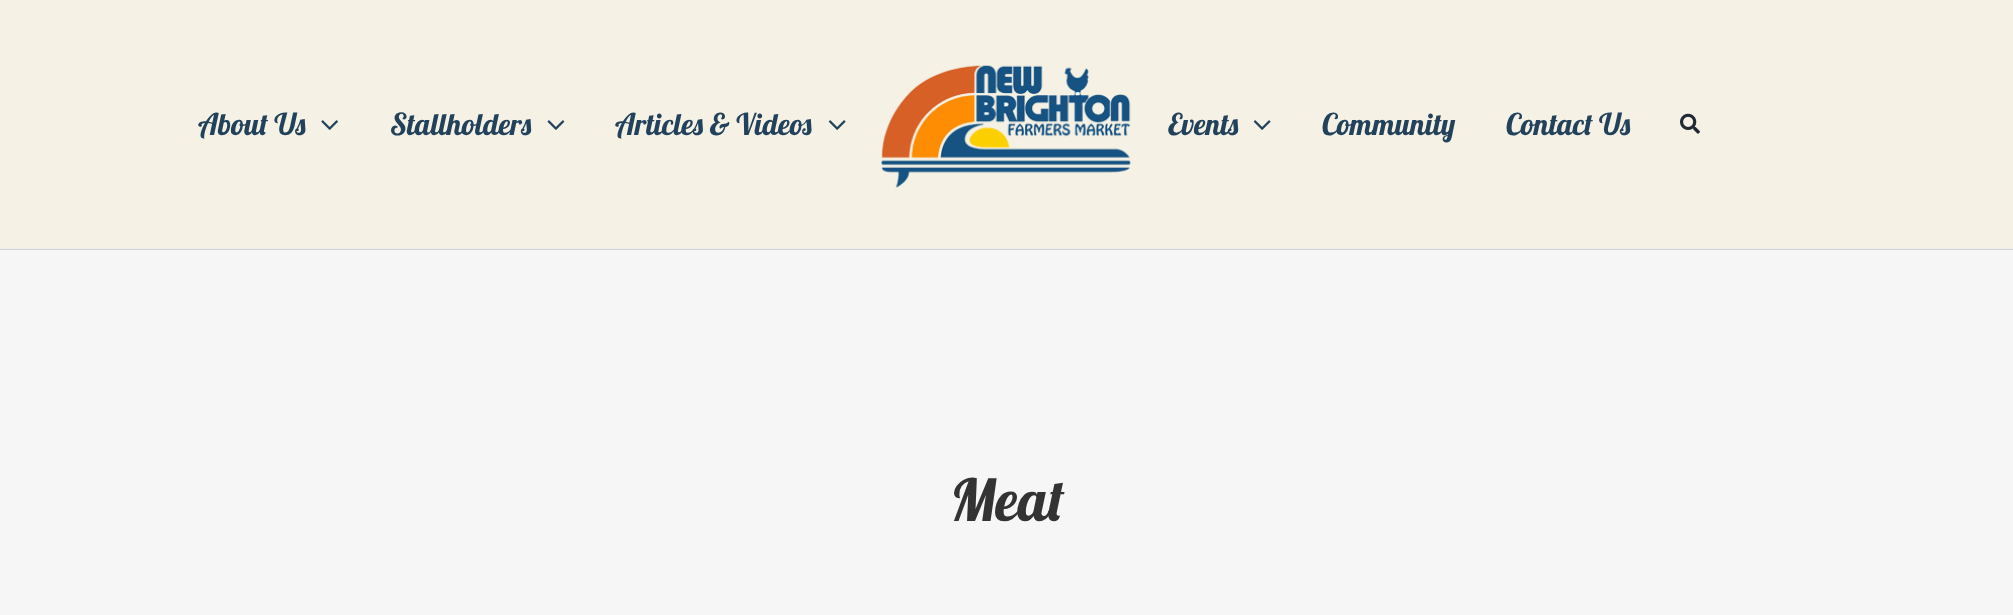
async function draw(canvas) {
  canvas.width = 2013;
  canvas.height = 615;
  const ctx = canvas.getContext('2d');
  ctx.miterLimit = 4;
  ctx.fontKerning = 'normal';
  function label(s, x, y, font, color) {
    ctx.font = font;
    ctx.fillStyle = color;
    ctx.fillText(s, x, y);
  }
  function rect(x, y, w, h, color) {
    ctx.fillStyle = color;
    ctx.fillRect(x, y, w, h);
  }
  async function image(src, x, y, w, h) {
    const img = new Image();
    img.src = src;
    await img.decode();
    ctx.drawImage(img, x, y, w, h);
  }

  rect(0, 0, 2013, 615, '#f6f6f6');
  rect(0, 0, 2013, 248, '#f5f1e4');
  rect(0, 248, 2013, 1, '#ededed');
  label('About Us', 198, 135, '30px Lobster', '#22425b');
  await image('assets/img1.png', 321, 120, 17, 10);
  label('Stallholders', 390, 135, '30px Lobster', '#22425b');
  await image('assets/img2.png', 547, 120, 18, 10);
  label('Articles & Videos', 615, 135, '30px Lobster', '#22425b');
  await image('assets/img3.png', 828, 120, 18, 10);
  await image('assets/img4.png', 881, 65, 250, 123);
  label('Events', 1168, 135, '30px Lobster', '#22425b');
  await image('assets/img3.png', 1253, 120, 18, 10);
  label('Community', 1322, 135, '30px Lobster', '#22425b');
  label('Contact Us', 1506, 135, '30px Lobster', '#22425b');
  await image('assets/img5.png', 1680, 113, 20, 21);
  rect(0, 249, 2013, 1, '#d2d3d4');
  label('Meat', 950, 521, '58px Lobster', '#333');
}

draw(document.querySelector('canvas'));
